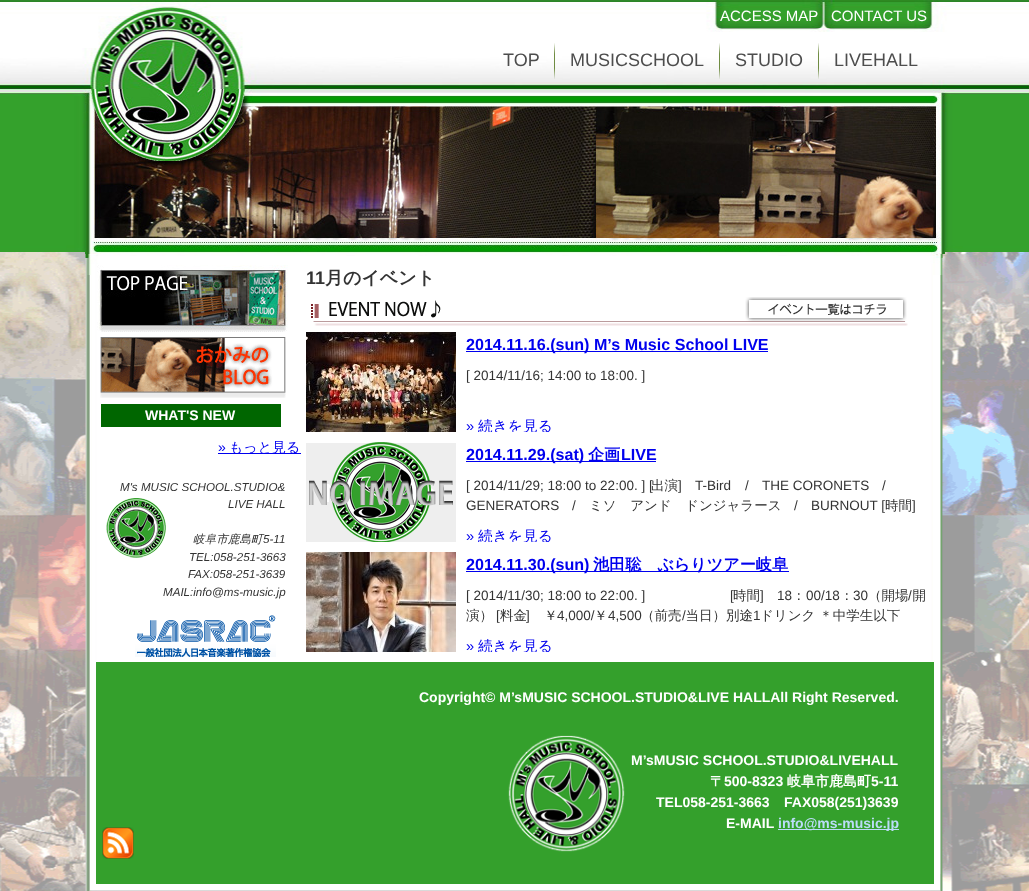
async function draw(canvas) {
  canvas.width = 1029;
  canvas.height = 891;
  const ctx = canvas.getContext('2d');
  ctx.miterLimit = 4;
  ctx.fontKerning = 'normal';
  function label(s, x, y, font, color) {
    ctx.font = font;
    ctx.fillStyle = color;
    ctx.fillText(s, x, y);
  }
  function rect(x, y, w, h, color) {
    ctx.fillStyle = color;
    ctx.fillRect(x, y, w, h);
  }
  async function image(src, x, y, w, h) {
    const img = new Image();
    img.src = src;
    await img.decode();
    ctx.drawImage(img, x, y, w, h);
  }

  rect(0, 0, 1029, 891, '#fff');
  await image('assets/img1.png', 0, 0, 1029, 891);
  label('ACCESS MAP', 720, 21, '15px Liberation Sans', '#fff');
  label('CONTACT US', 831, 21, '15px Liberation Sans', '#fff');
  label('TOP', 503, 66, '18px Liberation Sans', '#4d4d4d');
  await image('assets/img2.png', 554, 43, 1, 36);
  label('MUSICSCHOOL', 570, 66, '18px Liberation Sans', '#4d4d4d');
  await image('assets/img3.png', 719, 43, 1, 36);
  label('STUDIO', 735, 66, '18px Liberation Sans', '#4d4d4d');
  await image('assets/img4.png', 818, 43, 1, 36);
  label('LIVEHALL', 834, 66, '18px Liberation Sans', '#4d4d4d');
  await image('assets/img20.png', 0, 252, 1029, 639);
  await image('assets/img5.png', 85, 89, 860, 165);
  await image('assets/img6.png', 87, 275, 4, 599);
  await image('assets/img7.png', 97, 265, 191, 67);
  await image('assets/img8.png', 100, 337, 186, 61);
  rect(101, 404, 180, 23, '#060');
  label('WHAT\'S NEW', 145, 420, 'bold 14px Liberation Sans', '#fff');
  label('»', 218, 452, '14px Liberation Sans', '#00e');
  rect(218, 453, 83, 1, '#00e');
  label('もっと見る', 229, 452, '500 14px WenQuanYi Zen Hei', '#00e');
  await image('assets/img9.png', 106, 498, 60, 60);
  label('M\'s MUSIC SCHOOL.STUDIO&', 120, 491, 'italic 11.6px Liberation Sans', '#333');
  label('LIVE HALL', 228, 508, 'italic 11.6px Liberation Sans', '#333');
  label('岐阜市鹿島町', 193, 543, 'italic 500 11.6px WenQuanYi Zen Hei', '#333');
  label('5-11', 263, 543, 'italic 11.6px Liberation Sans', '#333');
  label('TEL:058-251-3663', 189, 561, 'italic 11.6px Liberation Sans', '#333');
  label('FAX:058-251-3639', 188, 578, 'italic 11.6px Liberation Sans', '#333');
  label('MAIL:info@ms-music.jp', 163, 596, 'italic 11.6px Liberation Sans', '#333');
  await image('assets/img10.png', 135, 615, 141, 42);
  label('11', 306, 284, 'bold 18px Liberation Sans', '#333');
  label('月のイベント', 325, 284, 'bold 18px WenQuanYi Zen Hei', '#333');
  await image('assets/img11.png', 311, 297, 597, 29);
  await image('assets/img12.png', 306, 332, 150, 100);
  rect(466, 351, 302, 1, '#00e');
  label('2014.11.16.(sun) M’s Music School LIVE', 466, 350, 'bold 16.1px Liberation Sans', '#00e');
  label('[ 2014/11/16; 14:00 to 18:00. ]', 466, 380, '13.5px Liberation Sans', '#333');
  label('»', 466, 431, '14.75px Liberation Sans', '#00e');
  ctx.save();
  ctx.beginPath();
  ctx.rect(306, 332, 628, 100);
  ctx.clip();
  label('続きを見る', 478, 431, '500 14.75px WenQuanYi Zen Hei', '#00e');
  ctx.restore();
  await image('assets/img13.png', 306, 442, 150, 100);
  rect(466, 461, 190, 1, '#00e');
  label('2014.11.29.(sat)', 466, 460, 'bold 16.1px Liberation Sans', '#00e');
  label('企画', 588, 460, 'bold 16.1px WenQuanYi Zen Hei', '#00e');
  label('LIVE', 621, 460, 'bold 16.1px Liberation Sans', '#00e');
  label('[ 2014/11/29; 18:00 to 22:00. ] [', 466, 490, '13.5px Liberation Sans', '#333');
  label('出演', 651, 490, '500 13.5px WenQuanYi Zen Hei', '#333');
  label(']', 678, 490, '13.5px Liberation Sans', '#333');
  label('T-Bird', 695, 490, '13.5px Liberation Sans', '#333');
  label('/', 745, 490, '13.5px Liberation Sans', '#333');
  label('THE CORONETS', 762, 490, '13.5px Liberation Sans', '#333');
  label('/', 882, 490, '13.5px Liberation Sans', '#333');
  label('GENERATORS', 466, 510, '13.5px Liberation Sans', '#333');
  label('/', 572, 510, '13.5px Liberation Sans', '#333');
  label('ミソ　アンド　ドンジャラース', 589, 510, '500 13.5px WenQuanYi Zen Hei', '#333');
  label('/', 794, 510, '13.5px Liberation Sans', '#333');
  label('BURNOUT [', 811, 510, '13.5px Liberation Sans', '#333');
  label('時間', 885, 510, '500 13.5px WenQuanYi Zen Hei', '#333');
  label(']', 912, 510, '13.5px Liberation Sans', '#333');
  label('»', 466, 541, '14.75px Liberation Sans', '#00e');
  ctx.save();
  ctx.beginPath();
  ctx.rect(306, 442, 628, 100);
  ctx.clip();
  label('続きを見る', 478, 541, '500 14.75px WenQuanYi Zen Hei', '#00e');
  ctx.restore();
  await image('assets/img14.png', 306, 552, 150, 100);
  rect(466, 571, 323, 1, '#00e');
  label('2014.11.30.(sun)', 466, 570, 'bold 16.1px Liberation Sans', '#00e');
  label('池田聡　ぶらりツアー岐阜', 593, 570, 'bold 16.1px WenQuanYi Zen Hei', '#00e');
  label('[ 2014/11/30; 18:00 to 22:00. ]', 466, 600, '13.5px Liberation Sans', '#333');
  label('[', 730, 600, '13.5px Liberation Sans', '#333');
  label('時間', 733, 600, '500 13.5px WenQuanYi Zen Hei', '#333');
  label(']', 760, 600, '13.5px Liberation Sans', '#333');
  label('18', 777, 600, '13.5px Liberation Sans', '#333');
  label('00/18', 806, 600, '13.5px Liberation Sans', '#333');
  label('30', 853, 600, '13.5px Liberation Sans', '#333');
  label('（開場 開', 868, 600, '500 13.5px WenQuanYi Zen Hei', '#333');
  label('：', 792, 600, '500 13.5px WenQuanYi Zen Hei', '#333');
  label('：', 840, 600, '500 13.5px WenQuanYi Zen Hei', '#333');
  label('/', 908, 600, '13.5px Liberation Sans', '#333');
  label('演）', 466, 620, '500 13.5px WenQuanYi Zen Hei', '#333');
  label('[', 496, 620, '13.5px Liberation Sans', '#333');
  label('料金', 500, 620, '500 13.5px WenQuanYi Zen Hei', '#333');
  label(']', 526, 620, '13.5px Liberation Sans', '#333');
  label('￥', 544, 620, '500 13.5px WenQuanYi Zen Hei', '#333');
  label('4,000/', 557, 620, '13.5px Liberation Sans', '#333');
  label('￥', 594, 620, '500 13.5px WenQuanYi Zen Hei', '#333');
  label('4,500', 608, 620, '13.5px Liberation Sans', '#333');
  label('（前売 当日）別途', 641, 620, '500 13.5px WenQuanYi Zen Hei', '#333');
  label('ドリンク ＊中学生以下', 760, 620, '500 13.5px WenQuanYi Zen Hei', '#333');
  label('/', 682, 620, '13.5px Liberation Sans', '#333');
  label('1', 753, 620, '13.5px Liberation Sans', '#333');
  label('»', 466, 651, '14.75px Liberation Sans', '#00e');
  ctx.save();
  ctx.beginPath();
  ctx.rect(306, 552, 628, 100);
  ctx.clip();
  label('続きを見る', 478, 651, '500 14.75px WenQuanYi Zen Hei', '#00e');
  ctx.restore();
  await image('assets/img15.png', 933, 275, 10, 599);
  await image('assets/img18.png', 87, 874, 837, 17);
  await image('assets/img19.png', 924, 874, 19, 17);
  rect(96, 662, 838, 222, '#34a02c');
  label('Copyright© M’sMUSIC SCHOOL.STUDIO&LIVE HALLAll Right Reserved.', 419, 702, 'bold 14px Liberation Sans', '#fff');
  label('M’sMUSIC SCHOOL.STUDIO&LIVEHALL', 631, 765, 'bold 14px Liberation Sans', '#fff');
  label('〒', 710, 786, 'bold 14px WenQuanYi Zen Hei', '#fff');
  label('500-8323', 724, 786, 'bold 14px Liberation Sans', '#fff');
  label('岐阜市鹿島町', 787, 786, 'bold 14px WenQuanYi Zen Hei', '#fff');
  label('5-11', 871, 786, 'bold 14px Liberation Sans', '#fff');
  label('TEL058-251-3663', 656, 807, 'bold 14px Liberation Sans', '#fff');
  label('FAX058(251)3639', 784, 807, 'bold 14px Liberation Sans', '#fff');
  label('E-MAIL', 726, 828, 'bold 14px Liberation Sans', '#fff');
  rect(778, 829, 121, 1, '#bbdcf7');
  label('info@ms-music.jp', 778, 828, 'bold 14px Liberation Sans', '#bbdcf7');
  await image('assets/img16.png', 102, 827, 32, 32);
  await image('assets/img17.png', 508, 735, 117, 117);
}

draw(document.querySelector('canvas'));
